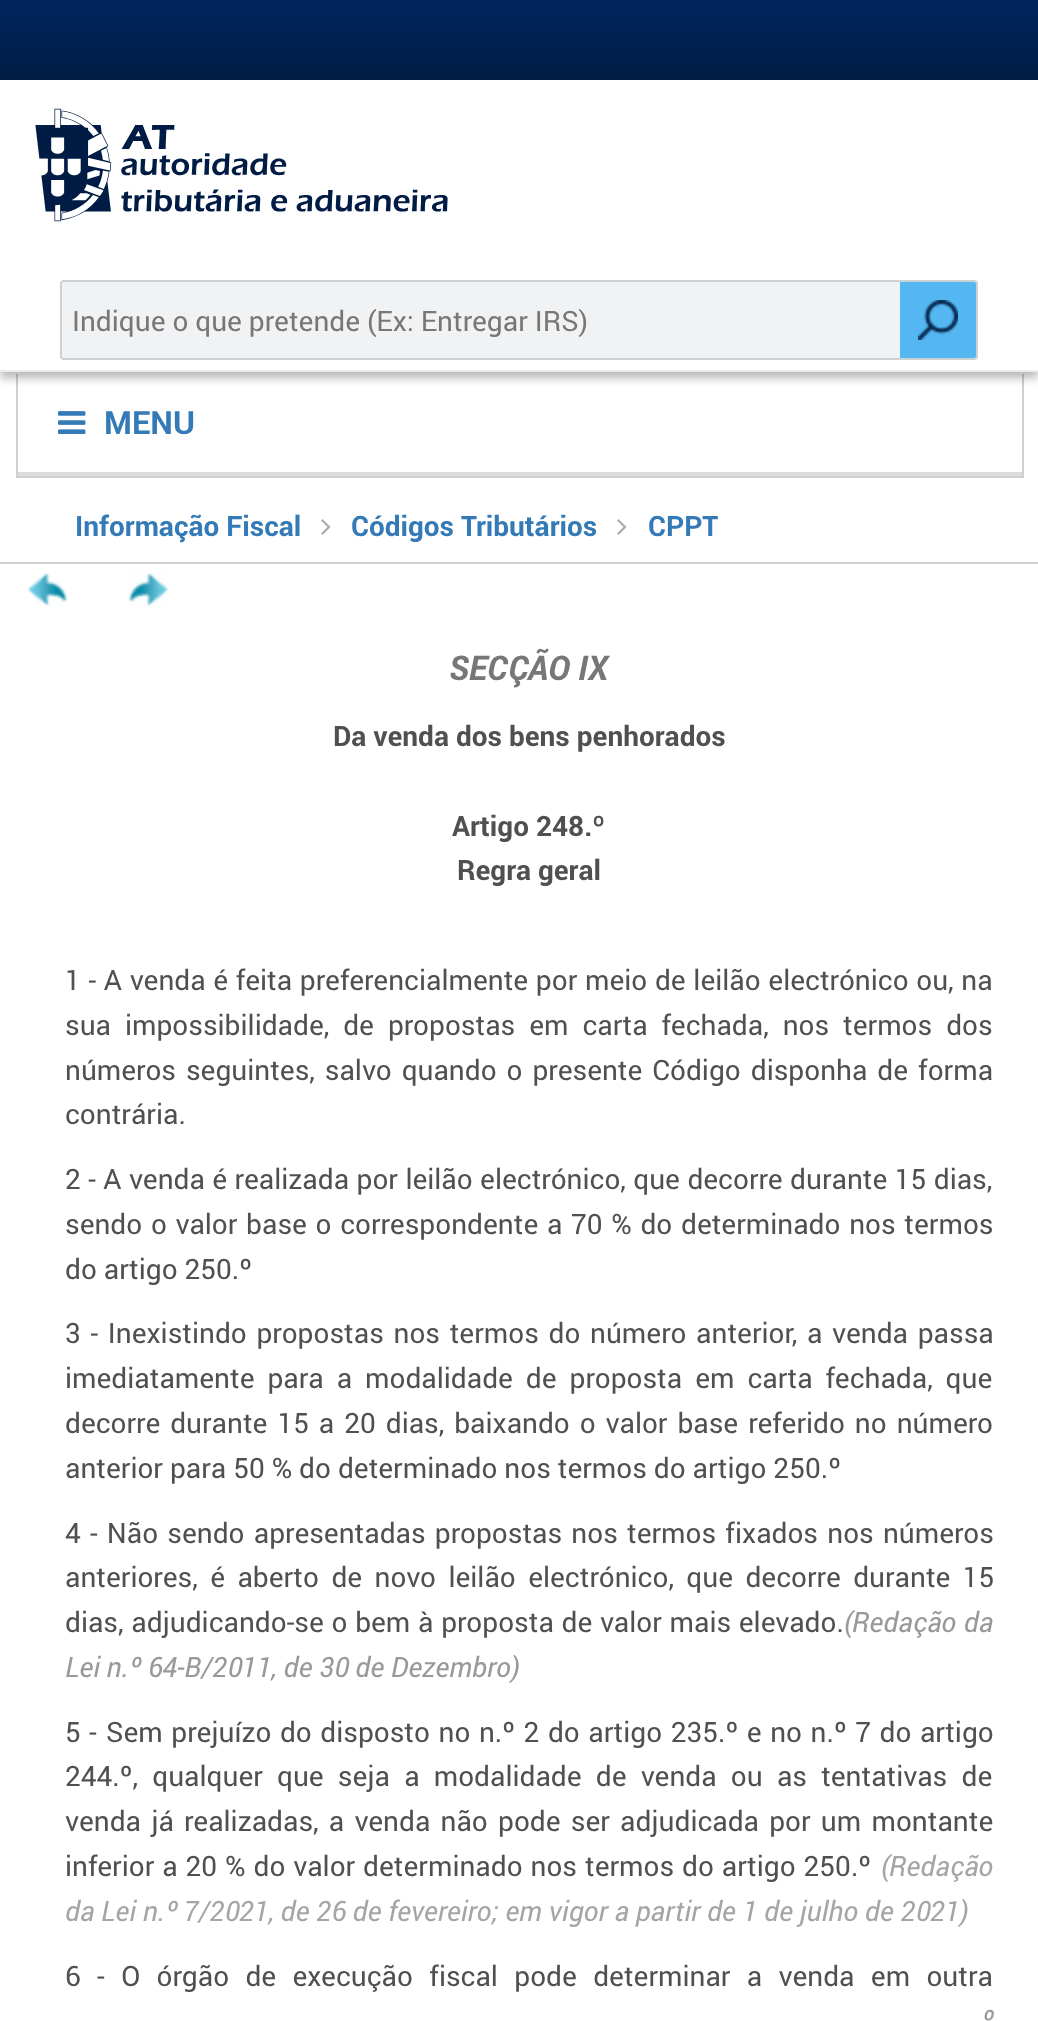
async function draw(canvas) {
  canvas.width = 1038;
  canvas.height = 2021;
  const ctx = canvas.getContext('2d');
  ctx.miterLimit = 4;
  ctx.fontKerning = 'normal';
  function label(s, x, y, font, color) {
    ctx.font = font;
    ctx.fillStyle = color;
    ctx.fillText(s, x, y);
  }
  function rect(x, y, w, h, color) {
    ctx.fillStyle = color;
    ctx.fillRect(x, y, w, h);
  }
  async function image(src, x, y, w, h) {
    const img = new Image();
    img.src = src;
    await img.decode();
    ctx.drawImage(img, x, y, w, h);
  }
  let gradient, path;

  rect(0, 0, 1038, 2021, '#fff');
  gradient = ctx.createLinearGradient(519, 0, 519, 80);
  gradient.addColorStop(0, '#00265e');
  gradient.addColorStop(1, '#001c44');
  ctx.fillStyle = gradient;
  ctx.fillRect(0, 0, 1038, 80);
  rect(1022, 374, 2, 104, '#cdd1d3');
  rect(16, 476, 1008, 2, '#cdd1d3');
  rect(16, 374, 2, 104, '#cdd1d3');
  ctx.save();
  path = new Path2D('M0 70H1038V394H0ZM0 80H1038V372H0Z');
  ctx.clip(path, 'evenodd');
  ctx.fillStyle = '#32323259';
  ctx.filter = 'blur(5px)';
  ctx.beginPath();
  ctx.rect(0, 86, 1038, 292);
  ctx.fill();
  ctx.filter = 'none';
  ctx.restore();
  rect(0, 370, 1038, 2, '#ececec');
  await image('assets/img1.png', 35, 108, 413, 114);
  ctx.fillStyle = '#f0f2f3';
  ctx.beginPath();
  ctx.roundRect(61, 281, 916, 78, 3);
  ctx.fill();
  ctx.strokeStyle = '#cdd1d3';
  ctx.lineWidth = 2;
  ctx.stroke();
  label('Indique o que pretende (Ex: Entregar IRS)', 72, 331, '28px Roboto', '#777');
  ctx.fillStyle = '#54b7f2';
  ctx.beginPath();
  ctx.roundRect(900, 282, 76, 76, [0, 2, 2, 0]);
  ctx.fill();
  await image('assets/img2.png', 918, 300, 40, 40);
  rect(0, 562, 1038, 2, '#cdd1d3');
  await image('assets/img3.png', 58, 411, 28, 23);
  label('MENU', 104, 434, 'bold 32px Roboto', '#337ab7');
  rect(18, 472, 1004, 4, '#ddd');
  label('Informação Fiscal', 75, 536, 'bold 28px Roboto', '#337ab7');
  await image('assets/img4.png', 321, 519, 10, 16);
  label('Códigos Tributários', 351, 536, 'bold 28px Roboto', '#337ab7');
  await image('assets/img4.png', 617, 519, 10, 16);
  label('CPPT', 648, 536, 'bold 28px Roboto', '#337ab7');
  await image('assets/img5.png', 128, 573, 41, 34);
  await image('assets/img6.png', 27, 573, 41, 34);
  label('SECÇÃO IX', 449, 680, 'italic bold 34px Roboto', '#777');
  label('Da venda dos bens penhorados', 333, 746, 'bold 28px Roboto', '#524f4f');
  label('Artigo 248.º', 452, 836, 'bold 28px Roboto', '#524f4f');
  label('Regra geral', 457, 880, 'bold 28px Roboto', '#524f4f');
  ctx.wordSpacing = '0.75px';
  label('1 - A venda é feita preferencialmente por meio de leilão electrónico ou, na', 65, 990, '28px Roboto', '#524f4f');
  ctx.wordSpacing = '7px';
  label('sua impossibilidade, de propostas em carta fechada, nos termos dos', 65, 1035, '28px Roboto', '#524f4f');
  ctx.wordSpacing = '3px';
  label('números seguintes, salvo quando o presente Código disponha de forma', 65, 1080, '28px Roboto', '#524f4f');
  ctx.wordSpacing = '0px';
  label('contrária.', 65, 1124, '28px Roboto', '#524f4f');
  ctx.wordSpacing = '0.5px';
  label('2 - A venda é realizada por leilão electrónico, que decorre durante 15 dias,', 65, 1189, '28px Roboto', '#524f4f');
  ctx.wordSpacing = '1.75px';
  label('sendo o valor base o correspondente a 70 % do determinado nos termos', 65, 1234, '28px Roboto', '#524f4f');
  ctx.wordSpacing = '0px';
  label('do artigo 250.º', 65, 1279, '28px Roboto', '#524f4f');
  ctx.wordSpacing = '2.75px';
  label('3 - Inexistindo propostas nos termos do número anterior, a venda passa', 65, 1343, '28px Roboto', '#524f4f');
  ctx.wordSpacing = '6px';
  label('imediatamente para a modalidade de proposta em carta fechada, que', 65, 1388, '28px Roboto', '#524f4f');
  ctx.wordSpacing = '3px';
  label('decorre durante 15 a 20 dias, baixando o valor base referido no número', 65, 1433, '28px Roboto', '#524f4f');
  ctx.wordSpacing = '0px';
  label('anterior para 50 % do determinado nos termos do artigo 250.º', 65, 1478, '28px Roboto', '#524f4f');
  ctx.wordSpacing = '2.25px';
  label('4 - Não sendo apresentadas propostas nos termos fixados nos números', 65, 1543, '28px Roboto', '#524f4f');
  ctx.wordSpacing = '5.5px';
  label('anteriores, é aberto de novo leilão electrónico, que decorre durante 15', 65, 1587, '28px Roboto', '#524f4f');
  ctx.wordSpacing = '0.75px';
  label('dias, adjudicando-se o bem à proposta de valor mais elevado.', 65, 1632, '28px Roboto', '#524f4f');
  ctx.wordSpacing = '1px';
  label('(Redação da', 843, 1632, 'italic 28px Roboto', '#999');
  ctx.wordSpacing = '0px';
  label('Lei n.º 64-B/2011, de 30 de Dezembro)', 65, 1677, 'italic 28px Roboto', '#999');
  label('5', 65, 1742, '28px Roboto', '#524f4f');
  label('-', 89, 1742, '28px Roboto', '#524f4f');
  ctx.wordSpacing = '1.6px';
  label('Sem prejuízo do disposto no n.º 2 do artigo 235.º e no n.º 7 do artigo', 106, 1742, '28px Roboto', '#524f4f');
  ctx.wordSpacing = '7.25px';
  label('244.º, qualquer que seja a modalidade de venda ou as tentativas de', 65, 1786, '28px Roboto', '#524f4f');
  ctx.wordSpacing = '3.25px';
  label('venda já realizadas, a venda não pode ser adjudicada por um montante', 65, 1831, '28px Roboto', '#524f4f');
  ctx.wordSpacing = '1px';
  label('inferior a 20 % do valor determinado nos termos do artigo 250.º', 65, 1876, '28px Roboto', '#524f4f');
  ctx.wordSpacing = '0px';
  label('(Redação', 880, 1876, 'italic 28px Roboto', '#a5a5a5');
  label('da Lei n.º 7/2021, de 26 de fevereiro; em vigor a partir de 1 de julho de 2021)', 65, 1921, 'italic 28px Roboto', '#a5a5a5');
  ctx.wordSpacing = '9.4px';
  label('6 - O órgão de execução fiscal pode determinar a venda em outra', 65, 1986, '28px Roboto', '#524f4f');
  ctx.wordSpacing = '7px';
  label('º', 981, 2030, 'italic 28px Roboto', '#999');
}

draw(document.querySelector('canvas'));
